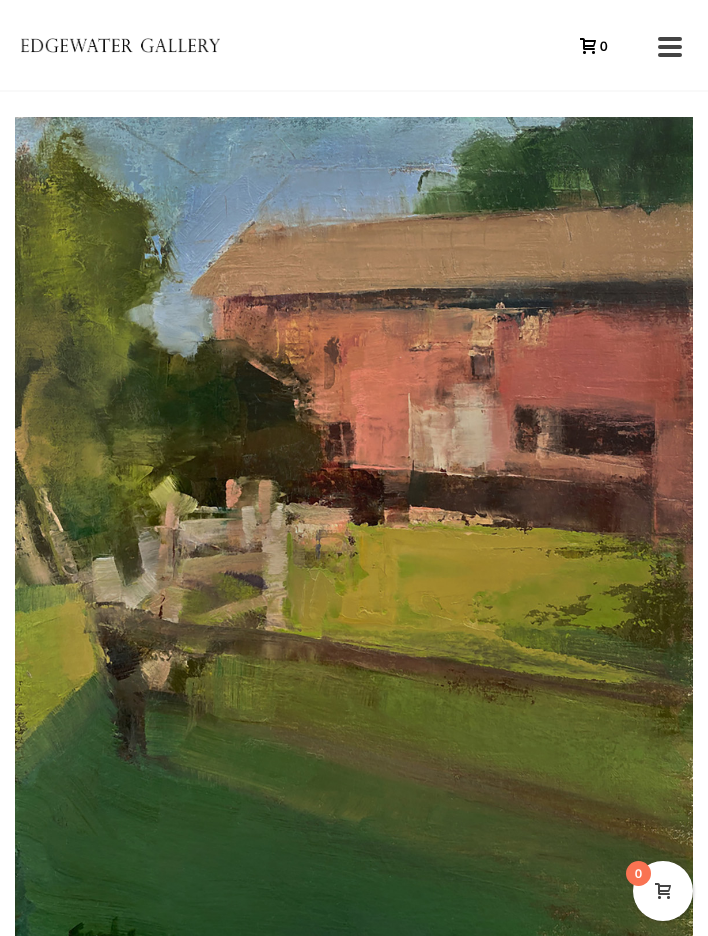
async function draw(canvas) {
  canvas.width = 708;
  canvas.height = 936;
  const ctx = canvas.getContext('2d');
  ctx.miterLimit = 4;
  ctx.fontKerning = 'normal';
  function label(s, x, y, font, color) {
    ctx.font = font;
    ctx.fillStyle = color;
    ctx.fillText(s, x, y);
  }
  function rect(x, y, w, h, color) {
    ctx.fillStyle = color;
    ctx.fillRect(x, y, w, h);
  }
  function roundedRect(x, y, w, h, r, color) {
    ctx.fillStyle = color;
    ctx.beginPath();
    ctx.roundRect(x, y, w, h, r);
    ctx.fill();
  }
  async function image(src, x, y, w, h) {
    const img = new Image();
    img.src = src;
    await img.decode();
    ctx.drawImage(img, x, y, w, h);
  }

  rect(0, 0, 708, 936, '#fff');
  rect(0, 90, 708, 2, '#f9f9f9');
  await image('assets/img1.png', 21, 38, 199, 15);
  await image('assets/img2.png', 580, 38, 16, 16);
  label('0', 600, 51, 'bold 13px Lato', '#000');
  roundedRect(658, 37, 24, 4, 2, '#444');
  roundedRect(658, 45, 24, 4, 2, '#444');
  roundedRect(658, 53, 24, 4, 2, '#444');
  await image('assets/img3.png', 15, 117, 678, 819);
  ctx.fillStyle = '#00000033';
  ctx.filter = 'blur(1.5px)';
  ctx.beginPath();
  ctx.roundRect(634, 862, 60, 60, 30);
  ctx.fill();
  ctx.filter = 'none';
  ctx.fillStyle = '#fff';
  ctx.beginPath();
  ctx.arc(663, 891, 30, 0, 2 * Math.PI);
  ctx.fill();
  ctx.fillStyle = '#f97352';
  ctx.beginPath();
  ctx.arc(638.5, 873.5, 12.5, 0, 2 * Math.PI);
  ctx.fill();
  label('0', 635, 878, 'bold 12px Lato', '#fff');
  await image('assets/img4.png', 655, 883, 16, 16);
}

draw(document.querySelector('canvas'));
